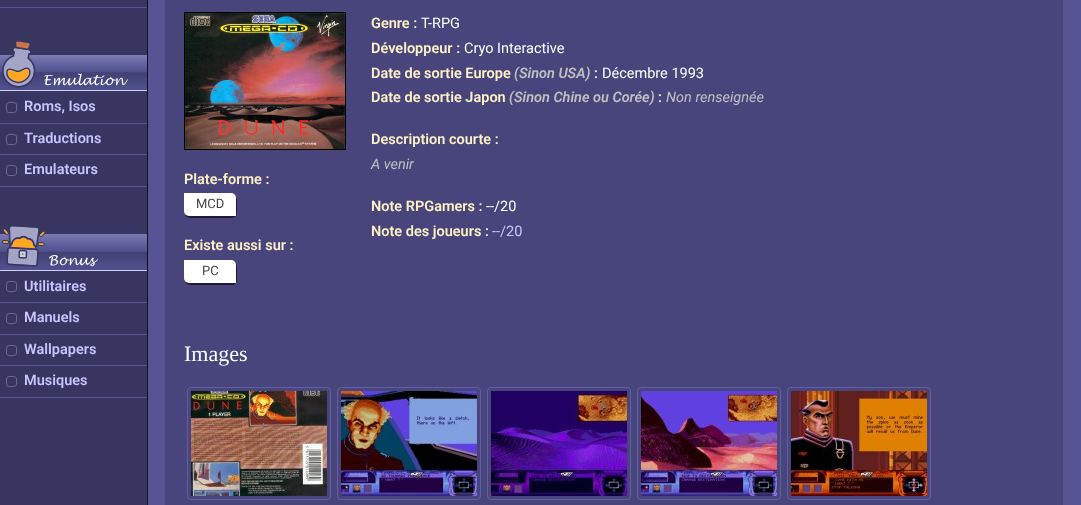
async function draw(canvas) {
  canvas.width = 1081;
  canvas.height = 505;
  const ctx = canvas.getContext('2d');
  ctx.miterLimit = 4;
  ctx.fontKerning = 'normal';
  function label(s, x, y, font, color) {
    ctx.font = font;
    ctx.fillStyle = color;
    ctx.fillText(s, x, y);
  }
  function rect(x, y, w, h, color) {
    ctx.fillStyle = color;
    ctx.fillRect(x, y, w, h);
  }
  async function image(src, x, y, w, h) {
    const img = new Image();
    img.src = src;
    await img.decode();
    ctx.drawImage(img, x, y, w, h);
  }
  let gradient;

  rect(0, 0, 1081, 505, '#575496');
  ctx.fillStyle = '#000000cc';
  ctx.filter = 'blur(0.5px)';
  ctx.beginPath();
  ctx.roundRect(1, -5, 147, 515, 3);
  ctx.fill();
  ctx.filter = 'none';
  rect(0, 0, 147, 505, '#383660');
  rect(0, 7, 147, 1, '#575496');
  gradient = ctx.createLinearGradient(74, 55, 74, 90);
  gradient.addColorStop(0, '#7a7ab4');
  gradient.addColorStop(0.48, '#50508f');
  gradient.addColorStop(0.51, '#414174');
  gradient.addColorStop(1, '#50508f');
  ctx.fillStyle = gradient;
  ctx.fillRect(0, 55, 147, 35);
  rect(0, 90, 147, 1, '#d0ceff');
  await image('assets/img1.png', 2, 41, 34, 47);
  label('Emulation', 43, 85, '13.5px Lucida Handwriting', '#fff');
  rect(0, 123, 147, 1, '#575496');
  ctx.beginPath();
  ctx.roundRect(6.5, 102.5, 10, 10, 2.5);
  ctx.strokeStyle = '#68668e';
  ctx.stroke();
  label('Roms, Isos', 24, 111, '600 14.5px Roboto', '#c7c4ff');
  rect(0, 154, 147, 1, '#575496');
  ctx.beginPath();
  ctx.roundRect(6.5, 134.5, 10, 10, 2.5);
  ctx.stroke();
  label('Traductions', 24, 143, '600 14.5px Roboto', '#c7c4ff');
  rect(0, 186, 147, 1, '#575496');
  ctx.beginPath();
  ctx.roundRect(6.5, 165.5, 10, 10, 2.5);
  ctx.stroke();
  label('Emulateurs', 24, 174, '600 14.5px Roboto', '#c7c4ff');
  gradient = ctx.createLinearGradient(74, 234, 74, 270);
  gradient.addColorStop(0, '#7a7ab4');
  gradient.addColorStop(0.48, '#50508f');
  gradient.addColorStop(0.51, '#414174');
  gradient.addColorStop(1, '#50508f');
  ctx.fillStyle = gradient;
  ctx.fillRect(0, 234, 147, 36);
  rect(0, 270, 147, 1, '#d0ceff');
  await image('assets/img2.png', 2, 226, 43, 41);
  label('Bonus', 48, 265, '13.5px Lucida Handwriting', '#fff');
  rect(0, 302, 147, 1, '#575496');
  ctx.beginPath();
  ctx.roundRect(6.5, 281.5, 10, 10, 2.5);
  ctx.stroke();
  label('Utilitaires', 24, 291, '600 14.5px Roboto', '#c7c4ff');
  rect(0, 334, 147, 1, '#575496');
  ctx.beginPath();
  ctx.roundRect(6.5, 313.5, 10, 10, 2.5);
  ctx.stroke();
  label('Manuels', 24, 322, '600 14.5px Roboto', '#c7c4ff');
  rect(0, 365, 147, 1, '#575496');
  ctx.beginPath();
  ctx.roundRect(6.5, 345.5, 10, 10, 2.5);
  ctx.stroke();
  label('Wallpapers', 24, 354, '600 14.5px Roboto', '#c7c4ff');
  rect(0, 397, 147, 1, '#575496');
  ctx.beginPath();
  ctx.roundRect(6.5, 376.5, 10, 10, 2.5);
  ctx.stroke();
  label('Musiques', 24, 385, '600 14.5px Roboto', '#c7c4ff');
  rect(165, 0, 898, 505, '#48457c');
  ctx.strokeStyle = '#000';
  ctx.strokeRect(184.5, 12.5, 161, 137);
  await image('assets/img3.png', 185, 13, 160, 136);
  label('Plate-forme :', 184, 184, '600 14.5px Roboto', '#fff1c6');
  ctx.fillStyle = '#00000099';
  ctx.filter = 'blur(0.5px)';
  ctx.beginPath();
  ctx.roundRect(185, 195, 52, 23, 5);
  ctx.fill();
  ctx.filter = 'none';
  ctx.fillStyle = '#fff';
  ctx.beginPath();
  ctx.roundRect(184, 193, 52, 23, [0, 5, 0, 5]);
  ctx.fill();
  label('MCD', 196, 208, '13px Roboto', '#444');
  label('Existe aussi sur :', 184, 250, '600 14.5px Roboto', '#fff1c6');
  ctx.fillStyle = '#00000099';
  ctx.filter = 'blur(0.5px)';
  ctx.beginPath();
  ctx.roundRect(185, 262, 52, 23, 5);
  ctx.fill();
  ctx.filter = 'none';
  ctx.fillStyle = '#fff';
  ctx.beginPath();
  ctx.roundRect(184, 260, 52, 23, [0, 5, 0, 5]);
  ctx.fill();
  label('PC', 202, 275, '13px Roboto', '#444');
  label('Genre :', 371, 28, '600 14.5px Roboto', '#fff1c6');
  label('T-RPG', 421, 28, '14.5px Roboto', '#fff');
  label('Développeur :', 371, 53, '600 14.5px Roboto', '#fff1c6');
  label('Cryo Interactive', 464, 53, '14.5px Roboto', '#fff');
  label('Date de sortie Europe', 371, 78, '600 14.5px Roboto', '#fff1c6');
  label('(Sinon USA)', 514, 78, 'italic 600 14.5px Roboto', '#c0c0c0');
  label(':', 594, 78, '600 14.5px Roboto', '#fff1c6');
  label('Décembre 1993', 602, 78, '14.5px Roboto', '#fff');
  label('Date de sortie Japon', 371, 102, '600 14.5px Roboto', '#fff1c6');
  label('(Sinon Chine ou Corée)', 509, 102, 'italic 600 14.5px Roboto', '#c0c0c0');
  label(':', 658, 102, '600 14.5px Roboto', '#fff1c6');
  label('Non renseignée', 666, 102, 'italic 14.5px Roboto', '#c0c0c0');
  label('Description courte :', 371, 144, '600 14.5px Roboto', '#fff1c6');
  label('A venir', 371, 169, 'italic 14.5px Roboto', '#c0c0c0');
  label('Note RPGamers :', 371, 211, '600 14.5px Roboto', '#fff1c6');
  label('--/20', 486, 211, '14.5px Roboto', '#fff');
  label('Note des joueurs :', 371, 236, '600 14.5px Roboto', '#fff1c6');
  label('--/20', 492, 236, '14.5px Roboto', '#c7c4ff');
  label('Images', 184, 361, '22px Liberation Serif', '#fff');
  ctx.beginPath();
  ctx.roundRect(187.5, 387.5, 143, 112, 3.5);
  ctx.strokeStyle = '#625fa7';
  ctx.stroke();
  await image('assets/img4.png', 191, 391, 136, 105);
  ctx.beginPath();
  ctx.roundRect(337.5, 387.5, 143, 112, 3.5);
  ctx.stroke();
  await image('assets/img5.png', 341, 391, 136, 105);
  ctx.beginPath();
  ctx.roundRect(487.5, 387.5, 143, 112, 3.5);
  ctx.stroke();
  await image('assets/img6.png', 491, 391, 136, 105);
  ctx.beginPath();
  ctx.roundRect(637.5, 387.5, 143, 112, 3.5);
  ctx.stroke();
  await image('assets/img7.png', 641, 391, 136, 105);
  ctx.beginPath();
  ctx.roundRect(787.5, 387.5, 143, 112, 3.5);
  ctx.stroke();
  await image('assets/img8.png', 791, 391, 136, 105);
}

draw(document.querySelector('canvas'));
